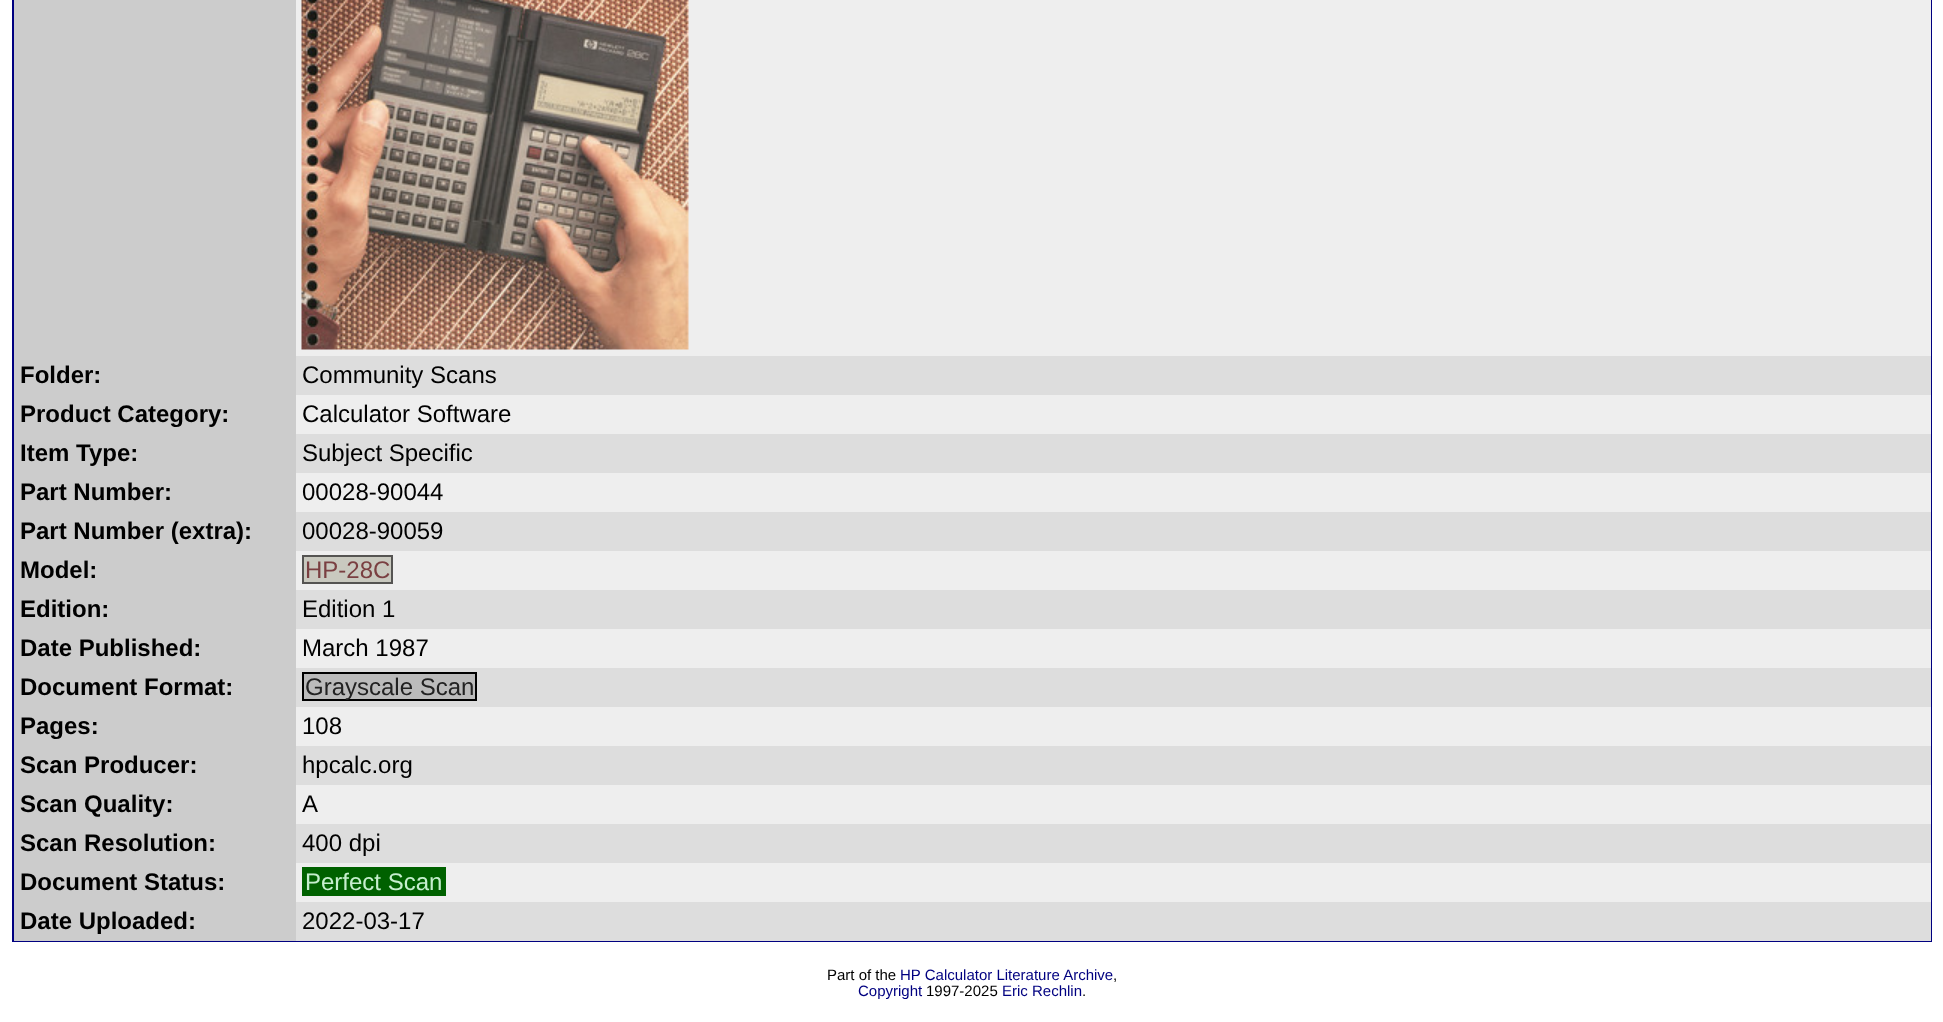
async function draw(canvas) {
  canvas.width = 1943;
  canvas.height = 1022;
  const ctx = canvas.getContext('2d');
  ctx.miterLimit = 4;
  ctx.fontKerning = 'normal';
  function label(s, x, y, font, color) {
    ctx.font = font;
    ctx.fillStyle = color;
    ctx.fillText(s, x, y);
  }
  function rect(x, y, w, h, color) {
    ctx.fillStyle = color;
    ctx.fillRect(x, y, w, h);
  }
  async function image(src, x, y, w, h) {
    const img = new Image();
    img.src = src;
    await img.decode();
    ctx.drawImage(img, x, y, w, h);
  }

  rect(0, 0, 1943, 1022, '#fff');
  rect(12, 0, 1920, 942, '#000080');
  rect(296, 0, 1635, 902, '#eee');
  rect(14, 0, 282, 941, '#ccc');
  await image('assets/img1.png', 301, 0, 388, 350);
  label('Folder:', 20, 383, 'bold 24px Liberation Sans', '#000');
  rect(296, 356, 1635, 39, '#ddd');
  label('Community Scans', 302, 383, '24px Liberation Sans', '#000');
  label('Product Category:', 20, 422, 'bold 24px Liberation Sans', '#000');
  label('Calculator Software', 302, 422, '24px Liberation Sans', '#000');
  label('Item Type:', 20, 461, 'bold 24px Liberation Sans', '#000');
  rect(296, 434, 1635, 39, '#ddd');
  label('Subject Specific', 302, 461, '24px Liberation Sans', '#000');
  label('Part Number:', 20, 500, 'bold 24px Liberation Sans', '#000');
  label('00028-90044', 302, 500, '24px Liberation Sans', '#000');
  label('Part Number (extra):', 20, 539, 'bold 24px Liberation Sans', '#000');
  rect(296, 512, 1635, 39, '#ddd');
  label('00028-90059', 302, 539, '24px Liberation Sans', '#000');
  label('Model:', 20, 578, 'bold 24px Liberation Sans', '#000');
  ctx.fillStyle = '#c9c9bf';
  ctx.beginPath();
  ctx.rect(303, 556, 89, 27);
  ctx.fill();
  ctx.strokeStyle = '#555452';
  ctx.lineWidth = 2;
  ctx.stroke();
  label('HP-28C', 305, 578, '24px Liberation Sans', '#7a3f41');
  label('Edition:', 20, 617, 'bold 24px Liberation Sans', '#000');
  rect(296, 590, 1635, 39, '#ddd');
  label('Edition 1', 302, 617, '24px Liberation Sans', '#000');
  label('Date Published:', 20, 656, 'bold 24px Liberation Sans', '#000');
  label('March 1987', 302, 656, '24px Liberation Sans', '#000');
  label('Document Format:', 20, 695, 'bold 24px Liberation Sans', '#000');
  rect(296, 668, 1635, 39, '#ddd');
  ctx.fillStyle = '#bbb';
  ctx.beginPath();
  ctx.rect(303, 673, 173, 27);
  ctx.fill();
  ctx.strokeStyle = '#000';
  ctx.stroke();
  label('Grayscale Scan', 305, 695, '24px Liberation Sans', '#222');
  label('Pages:', 20, 734, 'bold 24px Liberation Sans', '#000');
  label('108', 302, 734, '24px Liberation Sans', '#000');
  label('Scan Producer:', 20, 773, 'bold 24px Liberation Sans', '#000');
  rect(296, 746, 1635, 39, '#ddd');
  label('hpcalc.org', 302, 773, '24px Liberation Sans', '#000');
  label('Scan Quality:', 20, 812, 'bold 24px Liberation Sans', '#000');
  label('A', 302, 812, '24px Liberation Sans', '#000');
  label('Scan Resolution:', 20, 851, 'bold 24px Liberation Sans', '#000');
  rect(296, 824, 1635, 39, '#ddd');
  label('400 dpi', 302, 851, '24px Liberation Sans', '#000');
  label('Document Status:', 20, 890, 'bold 24px Liberation Sans', '#000');
  rect(302, 867, 144, 29, '#006100');
  label('Perfect Scan', 305, 890, '24px Liberation Sans', '#c6efce');
  label('Date Uploaded:', 20, 929, 'bold 24px Liberation Sans', '#000');
  rect(296, 902, 1635, 39, '#ddd');
  label('2022-03-17', 302, 929, '24px Liberation Sans', '#000');
  label('Part of the', 827, 980, '15px Liberation Sans', '#000');
  label('HP Calculator Literature Archive', 900, 980, '15px Liberation Sans', '#000080');
  label(',', 1113, 980, '15px Liberation Sans', '#000');
  label('Copyright', 858, 996, '15px Liberation Sans', '#000080');
  label('1997-2025', 926, 996, '15px Liberation Sans', '#000');
  label('Eric Rechlin', 1002, 996, '15px Liberation Sans', '#000080');
  label('.', 1082, 996, '15px Liberation Sans', '#000');
}

draw(document.querySelector('canvas'));
